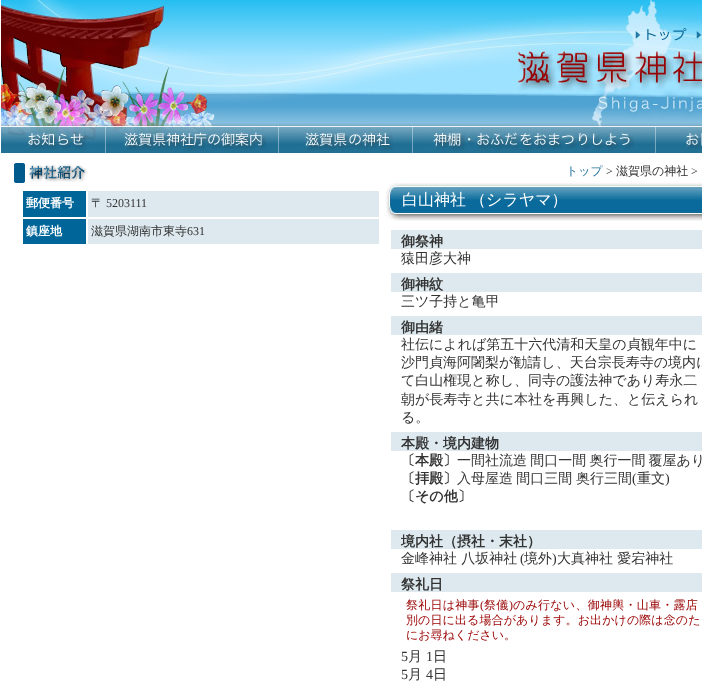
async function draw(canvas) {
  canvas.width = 702;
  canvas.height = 692;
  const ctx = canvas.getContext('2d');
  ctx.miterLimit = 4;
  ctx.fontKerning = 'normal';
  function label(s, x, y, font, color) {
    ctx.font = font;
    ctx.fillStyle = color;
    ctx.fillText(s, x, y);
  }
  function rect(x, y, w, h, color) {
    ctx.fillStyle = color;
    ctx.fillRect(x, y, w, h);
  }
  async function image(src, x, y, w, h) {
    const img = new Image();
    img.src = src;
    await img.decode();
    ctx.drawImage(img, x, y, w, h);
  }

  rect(0, 0, 702, 692, '#fff');
  await image('assets/img1.png', 1, 0, 513, 127);
  await image('assets/img2.png', 514, 0, 114, 45);
  await image('assets/img3.png', 628, 0, 63, 45);
  await image('assets/img4.png', 691, 0, 11, 45);
  await image('assets/img5.png', 514, 45, 188, 82);
  await image('assets/img6.png', 1, 127, 105, 27);
  await image('assets/img7.png', 106, 127, 173, 27);
  await image('assets/img8.png', 279, 127, 134, 27);
  await image('assets/img9.png', 413, 127, 243, 27);
  await image('assets/img10.png', 656, 127, 46, 27);
  await image('assets/img11.png', 14, 163, 74, 20);
  rect(23, 191, 63, 26, '#069');
  label('郵便番号', 26, 207, 'bold 12px WenQuanYi Zen Hei', '#fff');
  rect(88, 191, 291, 26, '#dde9ee');
  label('〒', 91, 207, '500 12px WenQuanYi Zen Hei', '#333');
  label('5203111', 106, 207, '12px Liberation Serif', '#333');
  rect(23, 219, 63, 25, '#069');
  label('鎮座地', 26, 235, 'bold 12px WenQuanYi Zen Hei', '#fff');
  rect(88, 219, 291, 25, '#dde9ee');
  label('滋賀県湖南市東寺', 91, 235, '500 12px WenQuanYi Zen Hei', '#333');
  label('631', 187, 235, '12px Liberation Serif', '#333');
  label('トップ', 566, 175, '500 12px WenQuanYi Zen Hei', '#277499');
  label('>', 606, 175, '12px Liberation Serif', '#333');
  label('滋賀県の神社', 616, 175, '500 12px WenQuanYi Zen Hei', '#333');
  label('>', 691, 175, '12px Liberation Serif', '#333');
  await image('assets/img12.png', 386, 181, 316, 40);
  label('白山神社', 402, 205, '500 16px WenQuanYi Zen Hei', '#fff');
  label('（シラヤマ）', 470, 205, '500 16px WenQuanYi Zen Hei', '#fff');
  rect(391, 230, 311, 19, '#dde9ee');
  label('御祭神', 401, 246, 'bold 14px WenQuanYi Zen Hei', '#333');
  label('猿田彦大神', 401, 263, '500 14px WenQuanYi Zen Hei', '#333');
  rect(391, 273, 311, 19, '#dde9ee');
  label('御神紋', 401, 289, 'bold 14px WenQuanYi Zen Hei', '#333');
  label('三ツ子持と亀甲', 401, 306, '500 14px WenQuanYi Zen Hei', '#333');
  rect(391, 316, 311, 19, '#dde9ee');
  label('御由緒', 401, 332, 'bold 14px WenQuanYi Zen Hei', '#333');
  label('社伝によれば第五十六代清和天皇の貞観年中に', 401, 349, '500 14px WenQuanYi Zen Hei', '#333');
  label('沙門貞海阿闍梨が勧請し、天台宗長寿寺の境内に', 401, 367, '500 14px WenQuanYi Zen Hei', '#333');
  label('て白山権現と称し、同寺の護法神であり寿永二', 401, 385, '500 14px WenQuanYi Zen Hei', '#333');
  label('朝が長寿寺と共に本社を再興した、と伝えられ', 401, 404, '500 14px WenQuanYi Zen Hei', '#333');
  label('る。', 401, 422, '500 14px WenQuanYi Zen Hei', '#333');
  rect(391, 432, 311, 19, '#dde9ee');
  label('本殿・境内建物', 401, 448, 'bold 14px WenQuanYi Zen Hei', '#333');
  label('〔本殿〕', 401, 465, 'bold 14px WenQuanYi Zen Hei', '#333');
  ctx.wordSpacing = '-1px';
  label('一間社流造 間口一間 奥行一間 覆屋あり', 457, 465, '500 14px WenQuanYi Zen Hei', '#333');
  ctx.wordSpacing = '0px';
  label('〔拝殿〕', 401, 483, 'bold 14px WenQuanYi Zen Hei', '#333');
  ctx.wordSpacing = '-1px';
  label('入母屋造 間口三間', 457, 483, '500 14px WenQuanYi Zen Hei', '#333');
  ctx.wordSpacing = '0px';
  label('奥行三間', 576, 483, '500 14px WenQuanYi Zen Hei', '#333');
  label('(', 632, 483, '14px Liberation Serif', '#333');
  label('重文', 637, 483, '500 14px WenQuanYi Zen Hei', '#333');
  label(')', 665, 483, '14px Liberation Serif', '#333');
  label('〔その他〕', 401, 501, 'bold 14px WenQuanYi Zen Hei', '#333');
  rect(391, 530, 311, 19, '#dde9ee');
  label('境内社（摂社・末社）', 401, 546, 'bold 14px WenQuanYi Zen Hei', '#333');
  label('金峰神社 八坂神社', 401, 563, '500 14px WenQuanYi Zen Hei', '#333');
  label('(', 520, 563, '14px Liberation Serif', '#333');
  label('境外', 524, 563, '500 14px WenQuanYi Zen Hei', '#333');
  label(')', 552, 563, '14px Liberation Serif', '#333');
  label('大真神社 愛宕神社', 557, 563, '500 14px WenQuanYi Zen Hei', '#333');
  rect(391, 573, 311, 19, '#dde9ee');
  label('祭礼日', 401, 589, 'bold 14px WenQuanYi Zen Hei', '#333');
  ctx.letterSpacing = '0.25px';
  label('祭礼日は神事', 406, 609, '500 12px WenQuanYi Zen Hei', '#900');
  label('(', 480, 609, '12px Liberation Serif', '#900');
  label('祭儀', 484, 609, '500 12px WenQuanYi Zen Hei', '#900');
  label(')', 509, 609, '12px Liberation Serif', '#900');
  label('のみ行ない、御神輿・山車・露店', 513, 609, '500 12px WenQuanYi Zen Hei', '#900');
  ctx.letterSpacing = '0.1px';
  label('別の日に出る場合があります。お出かけの際は念のた', 406, 624, '500 12px WenQuanYi Zen Hei', '#900');
  ctx.letterSpacing = '0px';
  label('にお尋ねください。', 406, 639, '500 12px WenQuanYi Zen Hei', '#900');
  label('5', 401, 661, '14px Liberation Serif', '#333');
  label('月', 408, 661, '500 14px WenQuanYi Zen Hei', '#333');
  label('1', 426, 661, '14px Liberation Serif', '#333');
  label('日', 433, 661, '500 14px WenQuanYi Zen Hei', '#333');
  label('5', 401, 679, '14px Liberation Serif', '#333');
  label('月', 408, 679, '500 14px WenQuanYi Zen Hei', '#333');
  label('4', 426, 679, '14px Liberation Serif', '#333');
  label('日', 433, 679, '500 14px WenQuanYi Zen Hei', '#333');
}

draw(document.querySelector('canvas'));
